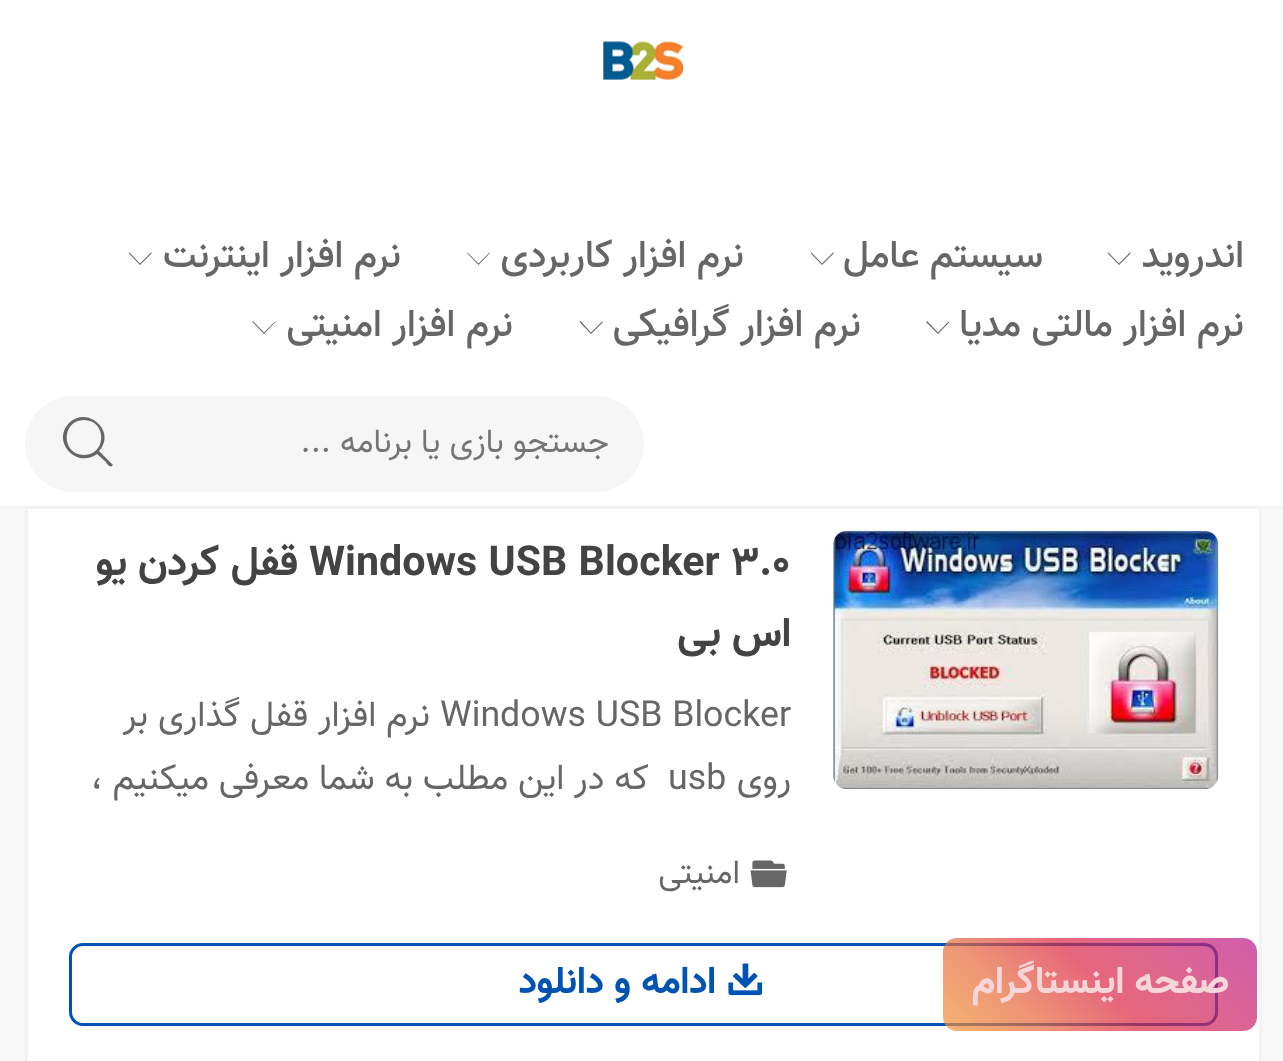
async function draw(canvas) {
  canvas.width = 1283;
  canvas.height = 1061;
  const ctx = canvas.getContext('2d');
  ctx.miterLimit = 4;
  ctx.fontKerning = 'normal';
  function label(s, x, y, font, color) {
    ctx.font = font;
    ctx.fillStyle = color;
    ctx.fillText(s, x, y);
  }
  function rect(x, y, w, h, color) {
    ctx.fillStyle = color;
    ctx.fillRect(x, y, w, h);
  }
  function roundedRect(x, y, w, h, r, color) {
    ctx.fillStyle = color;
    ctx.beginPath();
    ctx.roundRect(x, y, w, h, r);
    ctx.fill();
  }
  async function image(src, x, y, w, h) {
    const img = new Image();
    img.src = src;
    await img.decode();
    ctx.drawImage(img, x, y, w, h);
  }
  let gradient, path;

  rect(0, 0, 1283, 1061, '#f8f8f8');
  roundedRect(25, 487, 1237, 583, 14, '#fff');
  ctx.strokeStyle = '#0000000d';
  ctx.lineWidth = 3;
  ctx.strokeRect(26.5, 488.5, 1234, 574);
  rect(0, 0, 1283, 506, '#fff');
  rect(0, 506, 1283, 3, '#f2f2f2');
  await image('assets/img1.png', 603, 41, 81, 39);
  ctx.direction = 'rtl';
  label('اندروید', 1244, 267, '500 38.5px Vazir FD', '#666');
  path = new Path2D('M1131 253L1119 265L1107.5 253L1108.5 252.5L1119 263.5L1130 252.5Z');
  ctx.fill(path);
  label('سیستم عامل', 1043, 267, '500 38.5px Vazir FD', '#666');
  path = new Path2D('M834 253L822 265L810.5 253L811.5 252.5L822 263.5L833 252.5Z');
  ctx.fill(path);
  label('نرم افزار کاربردی', 744, 267, '500 38.5px Vazir FD', '#666');
  path = new Path2D('M490 253L478.5 265L467 253L467.5 252.5L478.5 263.5L489.5 252.5Z');
  ctx.fill(path);
  label('نرم افزار اینترنت', 401, 267, '500 38.5px Vazir FD', '#666');
  path = new Path2D('M152 253L140 265L128.5 253L129.5 252.5L140 263.5L151 252.5Z');
  ctx.fill(path);
  label('نرم افزار مالتی مدیا', 1244, 336, '500 38.5px Vazir FD', '#666');
  path = new Path2D('M949.5 322L938 334L926 322L927 321L938 332.5L948.5 321.5Z');
  ctx.fill(path);
  label('نرم افزار گرافیکی', 861, 336, '500 38.5px Vazir FD', '#666');
  path = new Path2D('M603 322L591 334L579.5 322L580.5 321L591 332.5L602 321.5Z');
  ctx.fill(path);
  label('نرم افزار امنیتی', 513, 336, '500 38.5px Vazir FD', '#666');
  path = new Path2D('M275.5 322L264 334L252.5 322L253 321L264 332.5L275 321.5Z');
  ctx.fill(path);
  roundedRect(25, 396, 619, 96, 48, '#f6f6f6');
  label('جستجو بازی یا برنامه ...', 609, 452, '33px Vazir FD', '#757575');
  ctx.fillStyle = '#666';
  path = new Path2D('M112 464L99 451C117 432 88 405 69 423C51 442 77 469 97 454L106 462C106 463 110 468 112 466C113 465 113 465 112 464ZM84 455C61 455 61 420 84 420C107 420 107 455 84 455Z');
  ctx.fill(path);
  ctx.beginPath();
  ctx.roundRect(70.5, 944.5, 1146, 80, 12.5);
  ctx.strokeStyle = '#0053b3';
  ctx.stroke();
  gradient = ctx.createLinearGradient(998, 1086, 1202, 883);
  gradient.addColorStop(0, '#f09433b3');
  gradient.addColorStop(0.25, '#e6683cb3');
  gradient.addColorStop(0.5, '#dc2743b3');
  gradient.addColorStop(0.75, '#cc2366b3');
  gradient.addColorStop(1, '#bc1888b3');
  ctx.fillStyle = gradient;
  ctx.beginPath();
  ctx.roundRect(943, 938, 314, 93, 14);
  ctx.fill();
  label('صفحه اینستاگرام', 1229, 993, 'bold 38.5px Vazir FD', '#f7d6d9');
  await image('assets/img2.png', 833, 530, 386, 260);
  ctx.direction = 'ltr';
  label('Windows USB Blocker 3.0', 309, 575, 'bold 41.25px Vazir FD', '#434343');
  ctx.direction = 'rtl';
  label('قفل كردن یو', 298, 575, 'bold 41.25px Vazir FD', '#434343');
  label('اس بی', 791, 646, 'bold 41.25px Vazir FD', '#434343');
  ctx.direction = 'ltr';
  label('Windows USB Blocker', 440, 726, '35.75px Vazir FD', '#666');
  ctx.direction = 'rtl';
  label('نرم افزار قفل گذاری بر', 430, 726, '35.75px Vazir FD', '#666');
  label('روی', 791, 789, '35.75px Vazir FD', '#666');
  ctx.direction = 'ltr';
  label('usb', 668, 789, '35.75px Vazir FD', '#666');
  ctx.direction = 'rtl';
  label('که در این مطلب به شما معرفی میکنیم ،', 649, 789, '35.75px Vazir FD', '#666');
  await image('assets/img3.png', 750, 860, 37, 28);
  label('امنیتی', 740, 883, '33px Vazir FD', '#666');
  await image('assets/img4.png', 728, 963, 35, 33);
  label('ادامه و دانلود', 716, 993, 'bold 38.5px Vazir FD', '#0053b3');
}

draw(document.querySelector('canvas'));
